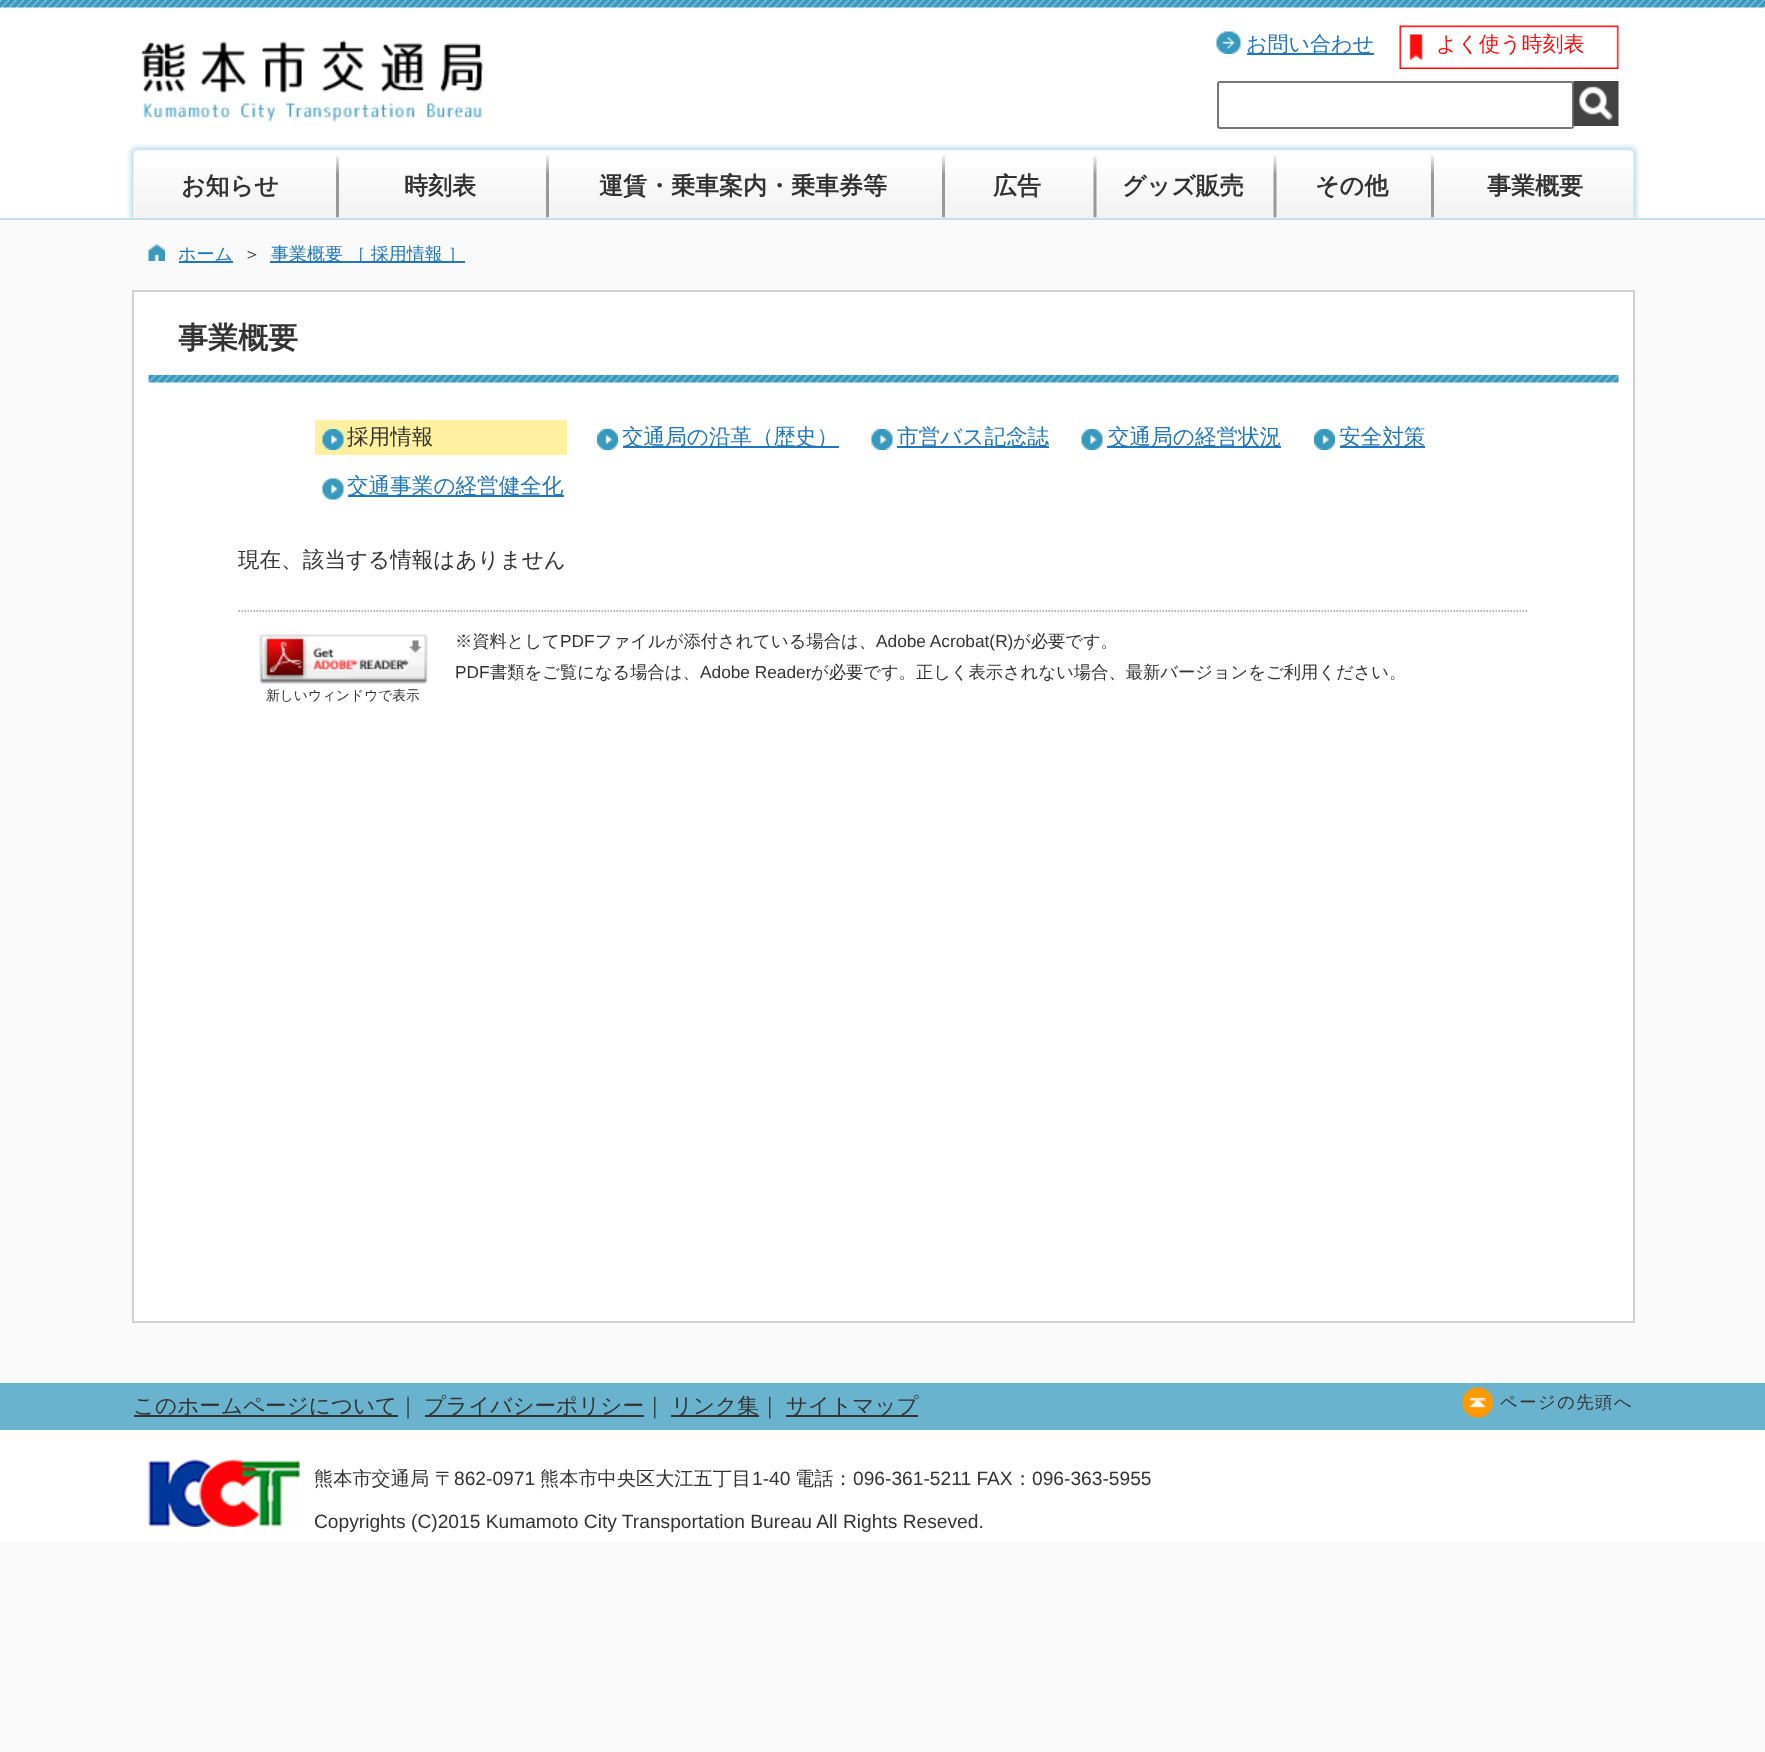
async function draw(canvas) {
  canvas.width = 1765;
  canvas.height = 1752;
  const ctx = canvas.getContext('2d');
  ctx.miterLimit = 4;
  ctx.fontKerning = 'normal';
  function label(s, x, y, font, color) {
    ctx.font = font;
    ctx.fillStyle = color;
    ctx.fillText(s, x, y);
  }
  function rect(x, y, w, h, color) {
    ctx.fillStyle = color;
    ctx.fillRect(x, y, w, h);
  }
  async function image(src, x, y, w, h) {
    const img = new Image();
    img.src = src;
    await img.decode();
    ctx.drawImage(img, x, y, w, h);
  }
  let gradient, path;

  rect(0, 0, 1765, 1752, '#fafafa');
  rect(0, 7, 1765, 211, '#fff');
  await image('assets/img1.png', 0, 0, 1765, 8);
  await image('assets/img2.png', 141, 40, 342, 82);
  await image('assets/img3.png', 1216, 31, 25, 23);
  rect(1247, 53, 127, 2, '#27b');
  label('お問い合わせ', 1246, 51, '500 21px WenQuanYi Zen Hei', '#27b');
  await image('assets/img4.png', 1399, 25, 220, 44);
  label('よく使う時刻表', 1436, 51, '500 21px WenQuanYi Zen Hei', '#ff0c0c');
  ctx.beginPath();
  ctx.roundRect(1218, 82, 355, 46, 2);
  ctx.strokeStyle = '#767676';
  ctx.lineWidth = 2;
  ctx.stroke();
  await image('assets/img5.png', 1573, 81, 46, 45);
  await image('assets/img6.png', 127, 144, 1513, 12);
  gradient = ctx.createLinearGradient(126, 156, 126, 218);
  gradient.addColorStop(0, '#fff');
  gradient.addColorStop(1, '#f2f2f2');
  ctx.fillStyle = gradient;
  ctx.fillRect(126, 168, 1515, 50);
  await image('assets/img7.png', 126, 156, 9, 62);
  label('お知らせ', 181, 194, 'bold 24px WenQuanYi Zen Hei', '#333');
  await image('assets/img8.png', 336, 156, 3, 62);
  label('時刻表', 404, 194, 'bold 24px WenQuanYi Zen Hei', '#333');
  await image('assets/img8.png', 546, 156, 3, 62);
  label('運賃・乗車案内・乗車券等', 599, 194, 'bold 24px WenQuanYi Zen Hei', '#333');
  await image('assets/img8.png', 942, 156, 3, 62);
  label('広告', 993, 194, 'bold 24px WenQuanYi Zen Hei', '#333');
  await image('assets/img9.png', 1093, 156, 4, 62);
  label('グッズ販売', 1122, 194, 'bold 24px WenQuanYi Zen Hei', '#333');
  await image('assets/img9.png', 1273, 156, 4, 62);
  label('その他', 1315, 194, 'bold 24px WenQuanYi Zen Hei', '#333');
  await image('assets/img10.png', 1633, 156, 8, 62);
  await image('assets/img8.png', 1431, 156, 3, 62);
  label('事業概要', 1487, 194, 'bold 24px WenQuanYi Zen Hei', '#333');
  rect(0, 218, 1765, 2, '#c4e0eb');
  await image('assets/img11.png', 148, 244, 17, 17);
  rect(179, 261, 54, 2, '#27b');
  label('ホーム', 178, 260, '500 18px WenQuanYi Zen Hei', '#27b');
  label('＞', 243, 260, '500 18px WenQuanYi Zen Hei', '#333');
  rect(270, 261, 195, 2, '#27b');
  ctx.wordSpacing = '-0.5px';
  label('事業概要 ［ 採用情報 ］', 271, 260, '500 18px WenQuanYi Zen Hei', '#27b');
  ctx.fillStyle = '#fff';
  ctx.beginPath();
  ctx.rect(133, 291, 1501, 1031);
  ctx.fill();
  ctx.strokeStyle = '#d1d1d1';
  ctx.stroke();
  await image('assets/img12.png', 148, 375, 1471, 8);
  ctx.wordSpacing = '0px';
  label('事業概要', 178, 348, 'bold 30px WenQuanYi Zen Hei', '#333');
  rect(315, 420, 252, 35, '#fff1a0');
  await image('assets/img13.png', 322, 429, 22, 21);
  label('採用情報', 347, 444, '500 21.6px WenQuanYi Zen Hei', '#333');
  await image('assets/img14.png', 597, 429, 21, 21);
  rect(623, 446, 216, 2, '#27b');
  label('交通局の沿革（歴史）', 622, 444, '500 21.6px WenQuanYi Zen Hei', '#27b');
  await image('assets/img15.png', 871, 429, 22, 21);
  rect(897, 446, 152, 2, '#27b');
  label('市営バス記念誌', 897, 444, '500 21.6px WenQuanYi Zen Hei', '#27b');
  await image('assets/img15.png', 1081, 429, 22, 21);
  rect(1107, 446, 174, 2, '#27b');
  label('交通局の経営状況', 1108, 444, '500 21.6px WenQuanYi Zen Hei', '#27b');
  await image('assets/img16.png', 1314, 429, 21, 21);
  rect(1340, 446, 85, 2, '#27b');
  label('安全対策', 1339, 444, '500 21.6px WenQuanYi Zen Hei', '#27b');
  await image('assets/img17.png', 322, 478, 22, 22);
  rect(348, 495, 216, 2, '#27b');
  label('交通事業の経営健全化', 347, 493, '500 21.6px WenQuanYi Zen Hei', '#27b');
  label('現在、該当する情報はありません', 238, 567, '500 21.6px WenQuanYi Zen Hei', '#333');
  path = new Path2D('M238.5 611H1528.5');
  ctx.strokeStyle = '#999';
  ctx.lineWidth = 1.5;
  ctx.setLineDash([1.5, 1.5]);
  ctx.stroke(path);
  label('※資料として', 455, 647, '500 17.3px WenQuanYi Zen Hei', '#333');
  label('PDF', 560, 647, '17.3px Liberation Sans', '#333');
  label('ファイルが添付されている場合は、', 595, 647, '500 17.3px WenQuanYi Zen Hei', '#333');
  label('Adobe Acrobat(R)', 876, 647, '17.3px Liberation Sans', '#333');
  label('が必要です。', 1013, 647, '500 17.3px WenQuanYi Zen Hei', '#333');
  label('PDF', 455, 678, '17.3px Liberation Sans', '#333');
  label('書類をご覧になる場合は、', 490, 678, '500 17.3px WenQuanYi Zen Hei', '#333');
  label('Adobe Reader', 700, 678, '17.3px Liberation Sans', '#333');
  label('が必要です。正しく表示されない場合、最新バージョンをご利用ください。', 811, 678, '500 17.3px WenQuanYi Zen Hei', '#333');
  await image('assets/img18.png', 259, 634, 169, 50);
  label('新しいウィンドウで表示', 266, 700, '500 13.75px WenQuanYi Zen Hei', '#333');
  rect(0, 1383, 1765, 47, '#6ab3ce');
  rect(134, 1415, 264, 2, '#333');
  label('このホームページについて｜', 133, 1413, '500 21.6px WenQuanYi Zen Hei', '#333');
  rect(425, 1415, 219, 2, '#333');
  label('プライバシーポリシー｜', 424, 1413, '500 21.6px WenQuanYi Zen Hei', '#333');
  rect(671, 1415, 88, 2, '#333');
  label('リンク集｜', 671, 1413, '500 21.6px WenQuanYi Zen Hei', '#333');
  rect(786, 1415, 132, 2, '#333');
  label('サイトマップ', 786, 1413, '500 21.6px WenQuanYi Zen Hei', '#333');
  await image('assets/img19.png', 1462, 1387, 31, 31);
  ctx.letterSpacing = '1.5px';
  label('ページの先頭へ', 1500, 1408, '500 17.3px WenQuanYi Zen Hei', '#333');
  rect(0, 1430, 1765, 112, '#fff');
  await image('assets/img20.png', 148, 1459, 152, 68);
  ctx.letterSpacing = '0px';
  label('熊本市交通局', 314, 1485, '500 19.2px WenQuanYi Zen Hei', '#333');
  label('〒', 435, 1485, '500 19.2px WenQuanYi Zen Hei', '#333');
  label('862-0971', 454, 1485, '19.2px Liberation Sans', '#333');
  label('熊本市中央区大江五丁目', 540, 1485, '500 19.2px WenQuanYi Zen Hei', '#333');
  label('1-40', 752, 1485, '19.2px Liberation Sans', '#333');
  label('電話：', 795, 1485, '500 19.2px WenQuanYi Zen Hei', '#333');
  label('096-361-5211 FAX', 853, 1485, '19.2px Liberation Sans', '#333');
  label('：', 1013, 1485, '500 19.2px WenQuanYi Zen Hei', '#333');
  label('096-363-5955', 1032, 1485, '19.2px Liberation Sans', '#333');
  label('Copyrights (C)2015 Kumamoto City Transportation Bureau All Rights Reseved.', 314, 1528, '19.2px Liberation Sans', '#333');
}

draw(document.querySelector('canvas'));
